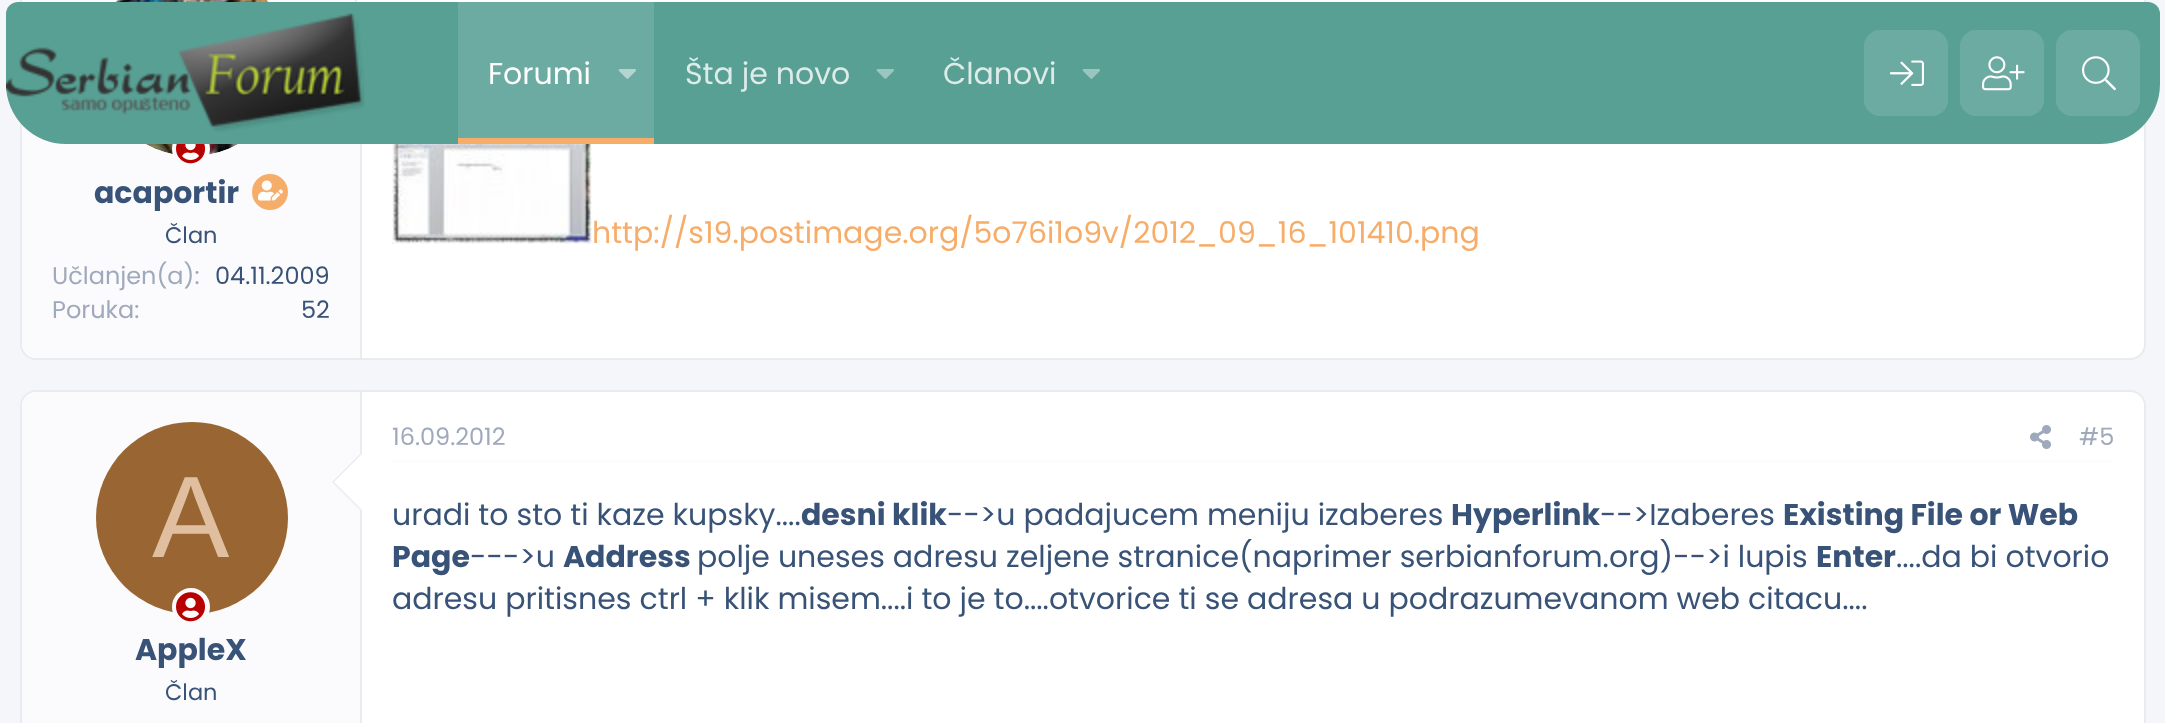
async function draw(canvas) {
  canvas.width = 2165;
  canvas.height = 723;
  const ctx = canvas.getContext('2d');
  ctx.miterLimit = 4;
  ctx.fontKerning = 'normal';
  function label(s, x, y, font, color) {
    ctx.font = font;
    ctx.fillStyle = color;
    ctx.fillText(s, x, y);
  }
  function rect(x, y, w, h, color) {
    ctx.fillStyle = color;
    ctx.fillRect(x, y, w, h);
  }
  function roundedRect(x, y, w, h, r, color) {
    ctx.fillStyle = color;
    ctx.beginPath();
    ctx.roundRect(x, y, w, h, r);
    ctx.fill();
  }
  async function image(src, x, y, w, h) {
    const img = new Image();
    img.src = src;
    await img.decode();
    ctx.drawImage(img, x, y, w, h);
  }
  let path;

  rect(0, 0, 2165, 723, '#f5f6fa');
  ctx.fillStyle = '#fff';
  ctx.beginPath();
  ctx.roundRect(21, -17, 2124, 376, 15);
  ctx.fill();
  ctx.strokeStyle = '#eaebf0';
  ctx.lineWidth = 2;
  ctx.stroke();
  ctx.fillStyle = '#fbfbfd';
  path = new Path2D('M36-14H362V358H36C28.5 358 22 351.5 22 344V0C22-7.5 28.5-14 36-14Z');
  ctx.fill(path);
  ctx.fillStyle = '#fff';
  ctx.beginPath();
  ctx.arc(192, 60, 96, 0, 2 * Math.PI);
  ctx.fill();
  await image('assets/img7.png', 116, 0, 152, 155);
  ctx.fillStyle = '#fbfbfd';
  ctx.beginPath();
  ctx.arc(191, 149, 17, 0, 2 * Math.PI);
  ctx.fill();
  ctx.strokeStyle = '#fbfbfd';
  ctx.lineWidth = 4;
  ctx.stroke();
  ctx.fillStyle = '#eaebf0';
  path = new Path2D('M362-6V54L332 24Z');
  ctx.fill(path);
  ctx.fillStyle = '#fff';
  path = new Path2D('M362-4V52L334 24Z');
  ctx.fill(path);
  ctx.fillStyle = '#58a094';
  ctx.beginPath();
  ctx.roundRect(6, 2, 2154, 142, [12, 12, 60, 60]);
  ctx.fill();
  await image('assets/img1.png', 6, 13, 359, 119);
  rect(458, 2, 196, 136, '#6caba1');
  rect(458, 138, 196, 6, '#f7ad6a');
  label('Forumi', 488, 84, '30px Poppins', '#fefefe');
  await image('assets/img2.png', 618, 69, 18, 10);
  label('Šta je novo', 685, 84, '30px Poppins', '#ddebe9');
  await image('assets/img3.png', 876, 69, 18, 10);
  label('Članovi', 943, 84, '30px Poppins', '#ddebe9');
  await image('assets/img3.png', 1082, 69, 18, 10);
  roundedRect(1864, 30, 84, 86, 16, '#6caba1');
  await image('assets/img4.png', 1890, 60, 34, 26);
  roundedRect(1960, 30, 84, 86, 16, '#6caba1');
  await image('assets/img5.png', 1982, 56, 43, 35);
  roundedRect(2056, 30, 84, 86, 16, '#6caba1');
  await image('assets/img6.png', 2082, 56, 34, 35);
  rect(360, 144, 2, 214, '#eaebf0');
  await image('assets/img8.png', 176, 144, 30, 20);
  label('acaportir', 94, 203, 'bold 30px Poppins', '#385377');
  ctx.fillStyle = '#f7ad6a';
  ctx.beginPath();
  ctx.arc(270, 192, 18, 0, 2 * Math.PI);
  ctx.fill();
  await image('assets/img9.png', 258, 180, 25, 21);
  label('Član', 165, 243, '22.5px Poppins', '#385377');
  label('Učlanjen(a):', 52, 284, '24px Poppins', '#9fa9bc');
  label('04.11.2009', 215, 284, '24px Poppins', '#385377');
  label('Poruka:', 52, 318, '24px Poppins', '#9fa9bc');
  label('52', 301, 318, '24px Poppins', '#385377');
  await image('assets/img10.png', 392, 144, 200, 100);
  label('http://s19.postimage.org/5o76i1o9v/2012_09_16_101410.png', 592, 243, '30px Poppins', '#f7ad6a');
  ctx.fillStyle = '#fff';
  ctx.beginPath();
  ctx.roundRect(21, 391, 2124, 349, 15);
  ctx.fill();
  ctx.strokeStyle = '#eaebf0';
  ctx.lineWidth = 2;
  ctx.stroke();
  ctx.fillStyle = '#fbfbfd';
  path = new Path2D('M36 392H362V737H36C28.5 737 22 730.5 22 723V406C22 398.5 28.5 392 36 392Z');
  ctx.fill(path);
  rect(360, 392, 2, 331, '#eaebf0');
  ctx.fillStyle = '#963';
  ctx.beginPath();
  ctx.arc(192, 518, 96, 0, 2 * Math.PI);
  ctx.fill();
  label('A', 152, 557, '116px Liberation Sans', '#dfbf9f');
  ctx.fillStyle = '#fbfbfd';
  ctx.beginPath();
  ctx.arc(191, 607, 17, 0, 2 * Math.PI);
  ctx.fill();
  ctx.strokeStyle = '#fbfbfd';
  ctx.lineWidth = 4;
  ctx.stroke();
  await image('assets/img11.png', 176, 592, 30, 30);
  ctx.fillStyle = '#eaebf0';
  path = new Path2D('M362 452V512L332 482Z');
  ctx.fill(path);
  ctx.fillStyle = '#fff';
  path = new Path2D('M362 454V510L334 482Z');
  ctx.fill(path);
  label('AppleX', 135, 660, 'bold 30px Poppins', '#385377');
  label('Član', 165, 700, '22.5px Poppins', '#385377');
  rect(392, 460, 1722, 2, '#fcfcfd');
  label('16.09.2012', 392, 445, '24px Poppins', '#9fa9bc');
  await image('assets/img12.png', 2030, 425, 21, 24);
  label('#5', 2079, 445, '24px Poppins', '#9fa9bc');
  label('uradi to sto ti kaze kupsky....', 392, 525, '30px Poppins', '#385377');
  label('desni klik', 801, 525, 'bold 30px Poppins', '#385377');
  label('-->u padajucem meniju izaberes', 947, 525, '30px Poppins', '#385377');
  label('Hyperlink', 1451, 525, 'bold 30px Poppins', '#385377');
  label('-->Izaberes', 1600, 525, '30px Poppins', '#385377');
  label('Existing File or Web', 1783, 525, 'bold 30px Poppins', '#385377');
  label('Page', 392, 567, 'bold 30px Poppins', '#385377');
  label('--->u', 470, 567, '30px Poppins', '#385377');
  label('Address', 563, 567, 'bold 30px Poppins', '#385377');
  label('polje uneses adresu zeljene stranice(naprimer serbianforum.org)-->i lupis', 697, 567, '30px Poppins', '#385377');
  label('Enter', 1816, 567, 'bold 30px Poppins', '#385377');
  label('....da bi otvorio', 1896, 567, '30px Poppins', '#385377');
  label('adresu pritisnes ctrl + klik misem....i to je to....otvorice ti se adresa u podrazumevanom web citacu....', 392, 609, '30px Poppins', '#385377');
}

draw(document.querySelector('canvas'));
